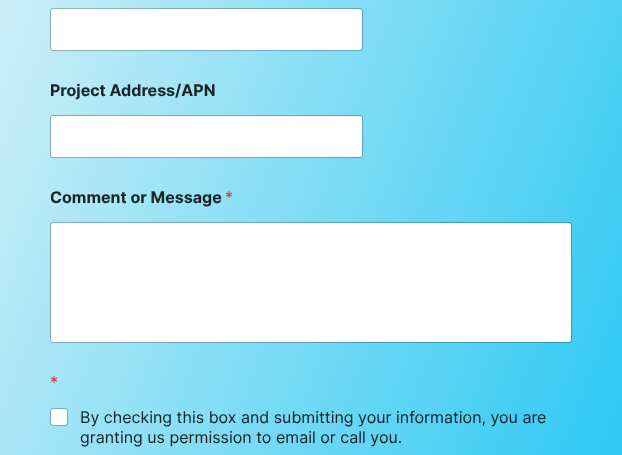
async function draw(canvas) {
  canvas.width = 622;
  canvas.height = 455;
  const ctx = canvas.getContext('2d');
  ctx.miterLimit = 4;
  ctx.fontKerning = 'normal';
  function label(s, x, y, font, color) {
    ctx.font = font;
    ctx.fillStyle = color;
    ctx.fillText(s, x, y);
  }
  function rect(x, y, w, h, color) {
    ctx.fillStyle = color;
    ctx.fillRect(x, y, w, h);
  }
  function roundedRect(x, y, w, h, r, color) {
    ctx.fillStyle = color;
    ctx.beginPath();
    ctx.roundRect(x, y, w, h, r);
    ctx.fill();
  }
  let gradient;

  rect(0, 0, 622, 455, '#fff');
  gradient = ctx.createLinearGradient(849, 440, -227, 26);
  gradient.addColorStop(0, '#00bef2');
  gradient.addColorStop(1, '#f9f9f9');
  ctx.fillStyle = gradient;
  ctx.fillRect(0, 0, 622, 455);
  roundedRect(51, 9, 311, 41, 2, '#fff');
  ctx.beginPath();
  ctx.roundRect(50.5, 8.5, 312, 42, 2.5);
  ctx.strokeStyle = '#00000040';
  ctx.stroke();
  label('Project Address/APN', 50, 96, 'bold 16px Inter', '#1a2325');
  roundedRect(51, 116, 311, 41, 2, '#fff');
  ctx.beginPath();
  ctx.roundRect(50.5, 115.5, 312, 42, 2.5);
  ctx.stroke();
  label('Comment or Message', 50, 203, 'bold 16px Inter', '#1a2325');
  label('*', 225, 203, '16px Inter', '#d63637');
  roundedRect(51, 223, 520, 119, 2, '#fff');
  ctx.beginPath();
  ctx.roundRect(50.5, 222.5, 521, 120, 2.5);
  ctx.stroke();
  label('*', 50, 388, '16px Inter', '#d63637');
  roundedRect(51, 409, 16, 16, 2, '#fff');
  ctx.beginPath();
  ctx.roundRect(50.5, 408.5, 17, 17, 2.5);
  ctx.stroke();
  label('By checking this box and submitting your information, you are', 80, 423, '16px Inter', '#112025');
  label('granting us permission to email or call you.', 80, 443, '16px Inter', '#112025');
}

draw(document.querySelector('canvas'));
